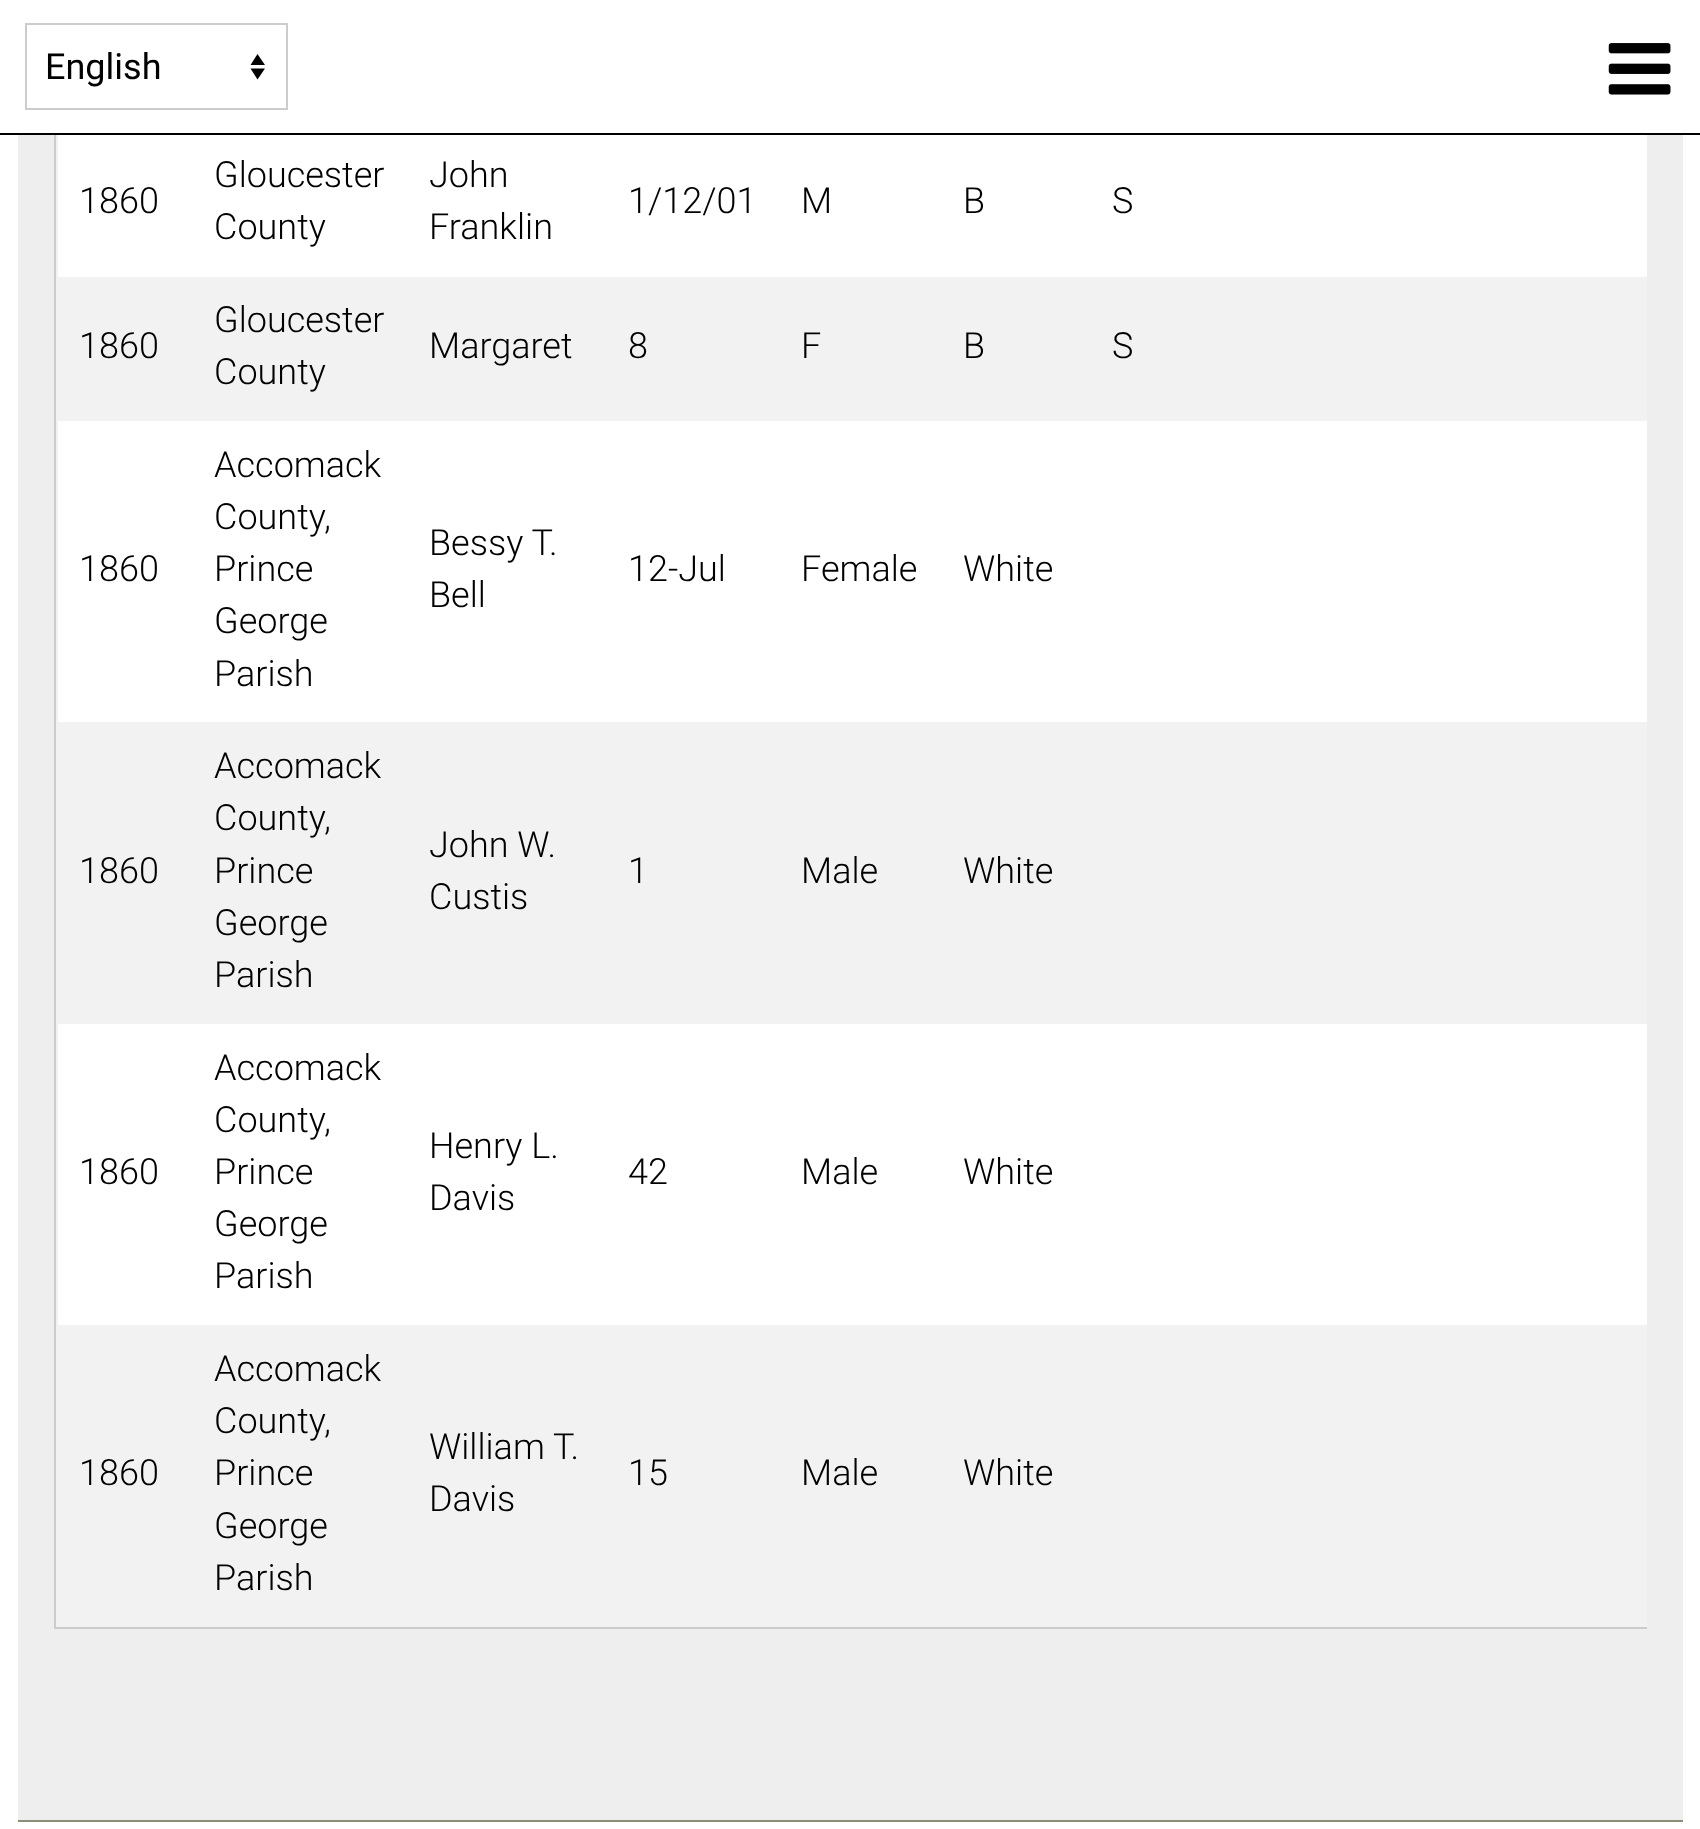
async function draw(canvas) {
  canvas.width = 1700;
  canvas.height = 1829;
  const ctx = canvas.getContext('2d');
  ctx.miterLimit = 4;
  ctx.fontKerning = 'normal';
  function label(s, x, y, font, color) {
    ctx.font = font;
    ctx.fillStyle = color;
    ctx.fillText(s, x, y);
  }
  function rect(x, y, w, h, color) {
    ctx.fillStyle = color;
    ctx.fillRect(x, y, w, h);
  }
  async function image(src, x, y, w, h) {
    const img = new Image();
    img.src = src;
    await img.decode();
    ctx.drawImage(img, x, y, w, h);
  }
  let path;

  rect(0, 0, 1700, 1829, '#fff');
  rect(18, 135, 1665, 1685, '#eee');
  ctx.save();
  ctx.beginPath();
  ctx.rect(54, 0, 1593, 1629);
  ctx.clip();
  ctx.strokeStyle = '#ccc';
  ctx.lineWidth = 2;
  ctx.strokeRect(55, -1, 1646, 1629);
  ctx.restore();
  rect(58, 135, 1589, 1190, '#fff');
  ctx.save();
  ctx.beginPath();
  ctx.rect(54, 0, 1593, 1629);
  ctx.clip();
  ctx.strokeStyle = '#f2f2f2';
  ctx.lineWidth = 2;
  ctx.strokeRect(57, -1, 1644, 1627);
  ctx.restore();
  rect(54, 0, 4, 133, '#fff');
  rect(0, 133, 1700, 2, '#000');
  path = new Path2D('M265 65H250.5L257.5 54ZM250.5 68.5H265L257.5 79.5Z');
  ctx.fill(path);
  ctx.strokeStyle = '#ccc';
  ctx.lineWidth = 2;
  ctx.strokeRect(26, 24, 261, 85);
  label('English', 45, 79, '36px Roboto', '#000');
  await image('assets/img1.png', 1608, 43, 63, 52);
  rect(18, 1820, 1665, 2, '#8a9077');
  label('1860', 79, 213, '300 36px Roboto', '#000');
  label('Gloucester', 214, 187, '300 36px Roboto', '#000');
  label('County', 214, 239, '300 36px Roboto', '#000');
  label('John', 429, 187, '300 36px Roboto', '#000');
  label('Franklin', 429, 239, '300 36px Roboto', '#000');
  label('1/12/01', 628, 213, '300 36px Roboto', '#000');
  label('M', 801, 213, '300 36px Roboto', '#000');
  label('B', 963, 213, '300 36px Roboto', '#000');
  label('S', 1112, 213, '300 36px Roboto', '#000');
  rect(58, 277, 1589, 144, '#f2f2f2');
  label('1860', 79, 358, '300 36px Roboto', '#000');
  label('Gloucester', 214, 332, '300 36px Roboto', '#000');
  label('County', 214, 384, '300 36px Roboto', '#000');
  label('Margaret', 429, 358, '300 36px Roboto', '#000');
  label('8', 628, 358, '300 36px Roboto', '#000');
  label('F', 801, 358, '300 36px Roboto', '#000');
  label('B', 963, 358, '300 36px Roboto', '#000');
  label('S', 1112, 358, '300 36px Roboto', '#000');
  label('1860', 79, 581, '300 36px Roboto', '#000');
  label('Accomack', 214, 477, '300 36px Roboto', '#000');
  label('County,', 214, 529, '300 36px Roboto', '#000');
  label('Prince', 214, 581, '300 36px Roboto', '#000');
  label('George', 214, 633, '300 36px Roboto', '#000');
  label('Parish', 214, 686, '300 36px Roboto', '#000');
  label('Bessy T.', 429, 555, '300 36px Roboto', '#000');
  label('Bell', 429, 607, '300 36px Roboto', '#000');
  label('12-Jul', 628, 581, '300 36px Roboto', '#000');
  label('Female', 801, 581, '300 36px Roboto', '#000');
  label('White', 963, 581, '300 36px Roboto', '#000');
  rect(58, 722, 1589, 302, '#f2f2f2');
  label('1860', 79, 883, '300 36px Roboto', '#000');
  label('Accomack', 214, 778, '300 36px Roboto', '#000');
  label('County,', 214, 830, '300 36px Roboto', '#000');
  label('Prince', 214, 883, '300 36px Roboto', '#000');
  label('George', 214, 935, '300 36px Roboto', '#000');
  label('Parish', 214, 987, '300 36px Roboto', '#000');
  label('John W.', 429, 857, '300 36px Roboto', '#000');
  label('Custis', 429, 909, '300 36px Roboto', '#000');
  label('1', 628, 883, '300 36px Roboto', '#000');
  label('Male', 801, 883, '300 36px Roboto', '#000');
  label('White', 963, 883, '300 36px Roboto', '#000');
  label('1860', 79, 1184, '300 36px Roboto', '#000');
  label('Accomack', 214, 1080, '300 36px Roboto', '#000');
  label('County,', 214, 1132, '300 36px Roboto', '#000');
  label('Prince', 214, 1184, '300 36px Roboto', '#000');
  label('George', 214, 1236, '300 36px Roboto', '#000');
  label('Parish', 214, 1288, '300 36px Roboto', '#000');
  label('Henry L.', 429, 1158, '300 36px Roboto', '#000');
  label('Davis', 429, 1210, '300 36px Roboto', '#000');
  label('42', 628, 1184, '300 36px Roboto', '#000');
  label('Male', 801, 1184, '300 36px Roboto', '#000');
  label('White', 963, 1184, '300 36px Roboto', '#000');
  rect(58, 1325, 1589, 300, '#f2f2f2');
  label('1860', 79, 1485, '300 36px Roboto', '#000');
  label('Accomack', 214, 1381, '300 36px Roboto', '#000');
  label('County,', 214, 1433, '300 36px Roboto', '#000');
  label('Prince', 214, 1485, '300 36px Roboto', '#000');
  label('George', 214, 1538, '300 36px Roboto', '#000');
  label('Parish', 214, 1590, '300 36px Roboto', '#000');
  label('William T.', 429, 1459, '300 36px Roboto', '#000');
  label('Davis', 429, 1511, '300 36px Roboto', '#000');
  label('15', 628, 1485, '300 36px Roboto', '#000');
  label('Male', 801, 1485, '300 36px Roboto', '#000');
  label('White', 963, 1485, '300 36px Roboto', '#000');
}

draw(document.querySelector('canvas'));
